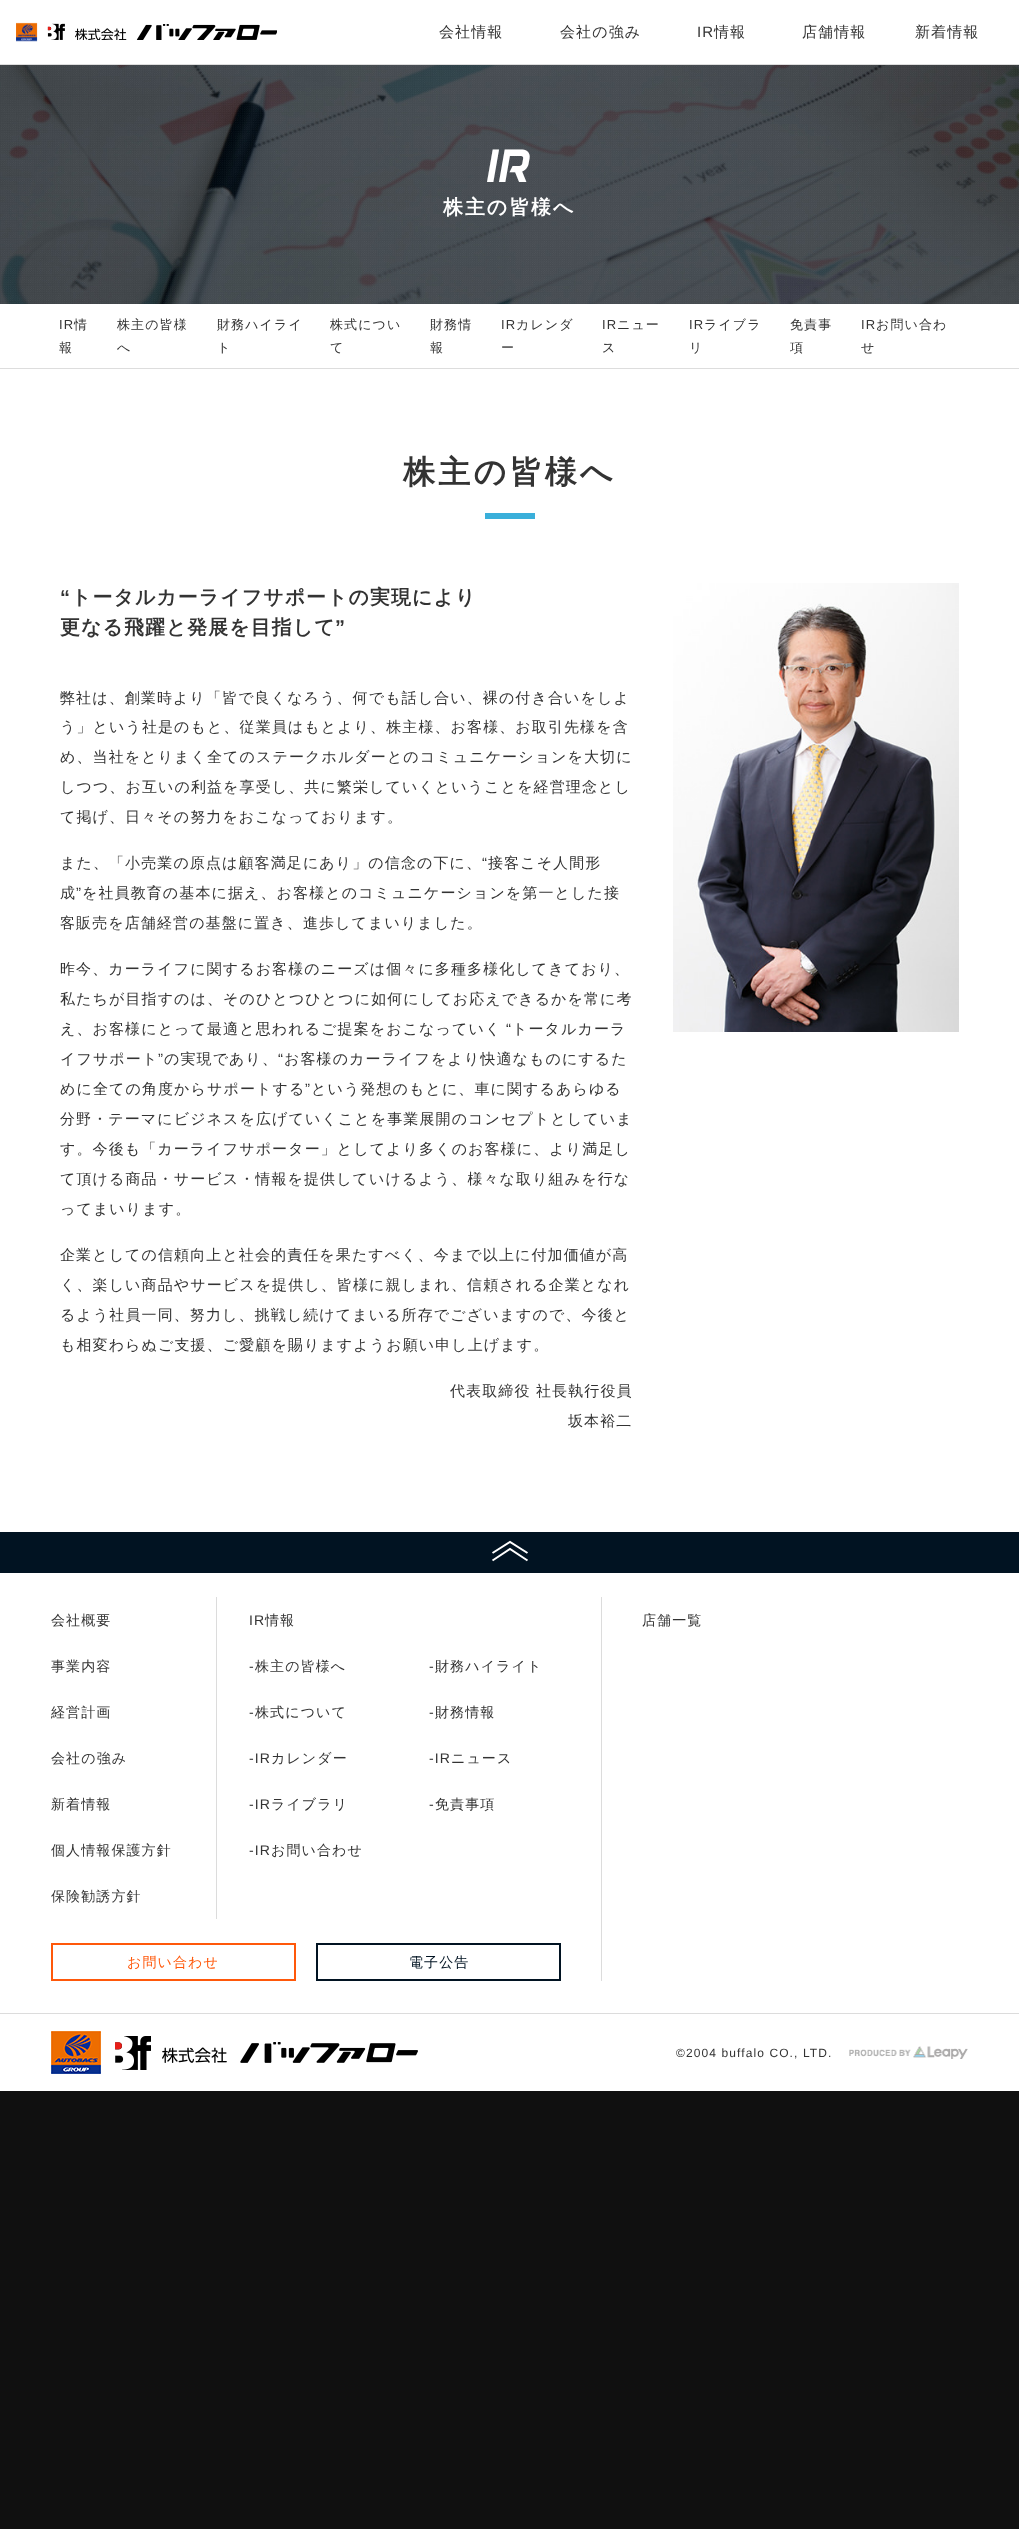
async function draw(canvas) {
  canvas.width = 1019;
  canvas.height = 2529;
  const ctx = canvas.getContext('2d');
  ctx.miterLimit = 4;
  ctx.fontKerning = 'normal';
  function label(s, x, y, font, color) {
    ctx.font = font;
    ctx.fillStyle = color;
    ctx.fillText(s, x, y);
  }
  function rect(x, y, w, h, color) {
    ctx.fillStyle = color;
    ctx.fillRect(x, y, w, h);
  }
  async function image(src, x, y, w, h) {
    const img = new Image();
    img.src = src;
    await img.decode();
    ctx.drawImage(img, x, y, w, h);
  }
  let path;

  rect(0, 0, 1019, 2529, '#101010');
  rect(0, 0, 1019, 64, '#fff');
  rect(0, 64, 1019, 1, '#ddd');
  await image('assets/img1.png', 16, 22, 22, 20);
  await image('assets/img2.png', 47, 23, 18, 17);
  await image('assets/img3.png', 75, 24, 202, 16);
  ctx.letterSpacing = '1.1px';
  label('会社情報', 439, 37, '500 15px WenQuanYi Zen Hei', '#333');
  label('会社の強み', 560, 37, '500 15px WenQuanYi Zen Hei', '#333');
  label('IR', 697, 37, '15px Liberation Sans', '#333');
  label('情報', 714, 37, '500 15px WenQuanYi Zen Hei', '#333');
  label('店舗情報', 802, 37, '500 15px WenQuanYi Zen Hei', '#333');
  label('新着情報', 915, 37, '500 15px WenQuanYi Zen Hei', '#333');
  rect(0, 304, 1019, 1228, '#fff');
  await image('assets/img4.png', 0, 65, 1019, 239);
  label('IR', 487, 182, 'italic 48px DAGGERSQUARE', '#fff');
  ctx.letterSpacing = '2px';
  label('株主の皆様へ', 443, 214, 'bold 19.9px WenQuanYi Zen Hei', '#fff');
  rect(0, 368, 1019, 1, '#ddd');
  ctx.letterSpacing = '1.1px';
  label('IR', 59, 329, '13px Liberation Sans', '#333');
  label('情', 74, 329, '500 13px WenQuanYi Zen Hei', '#333');
  label('報', 59, 352, '500 13px WenQuanYi Zen Hei', '#333');
  label('株主の皆様', 117, 329, '500 13px WenQuanYi Zen Hei', '#333');
  label('へ', 117, 352, '500 13px WenQuanYi Zen Hei', '#333');
  label('財務ハイライ', 217, 329, '500 13px WenQuanYi Zen Hei', '#333');
  label('ト', 217, 352, '500 13px WenQuanYi Zen Hei', '#333');
  label('株式につい', 330, 329, '500 13px WenQuanYi Zen Hei', '#333');
  label('て', 330, 352, '500 13px WenQuanYi Zen Hei', '#333');
  label('財務情', 430, 329, '500 13px WenQuanYi Zen Hei', '#333');
  label('報', 430, 352, '500 13px WenQuanYi Zen Hei', '#333');
  label('IR', 501, 329, '13px Liberation Sans', '#333');
  label('カレンダ', 516, 329, '500 13px WenQuanYi Zen Hei', '#333');
  label('ー', 501, 352, '500 13px WenQuanYi Zen Hei', '#333');
  label('IR', 602, 329, '13px Liberation Sans', '#333');
  label('ニュー', 617, 329, '500 13px WenQuanYi Zen Hei', '#333');
  label('ス', 602, 352, '500 13px WenQuanYi Zen Hei', '#333');
  label('IR', 689, 329, '13px Liberation Sans', '#333');
  label('ライブラ', 704, 329, '500 13px WenQuanYi Zen Hei', '#333');
  label('リ', 689, 352, '500 13px WenQuanYi Zen Hei', '#333');
  label('免責事', 790, 329, '500 13px WenQuanYi Zen Hei', '#333');
  label('項', 790, 352, '500 13px WenQuanYi Zen Hei', '#333');
  label('IR', 861, 329, '13px Liberation Sans', '#333');
  label('お問い合わ', 876, 329, '500 13px WenQuanYi Zen Hei', '#333');
  label('せ', 861, 352, '500 13px WenQuanYi Zen Hei', '#333');
  ctx.letterSpacing = '3.25px';
  label('株主の皆様へ', 403, 483, 'bold 32px WenQuanYi Zen Hei', '#333');
  rect(485, 513, 50, 6, '#3aafda');
  ctx.letterSpacing = '1.1px';
  label('“', 60, 604, 'bold 19.9px Liberation Sans', '#333');
  label('トータルカーライフサポートの実現により', 71, 604, 'bold 19.9px WenQuanYi Zen Hei', '#333');
  label('更なる飛躍と発展を目指して', 60, 634, 'bold 19.9px WenQuanYi Zen Hei', '#333');
  label('”', 335, 634, 'bold 19.9px Liberation Sans', '#333');
  label('弊社は、創業時より「皆で良くなろう、何でも話し合い、裸の付き合いをしよ', 60, 703, '500 15px WenQuanYi Zen Hei', '#333');
  label('う」という社是のもと、従業員はもとより、株主様、お客様、お取引先様を含', 60, 732, '500 15px WenQuanYi Zen Hei', '#333');
  label('め、当社をとりまく全てのステークホルダーとのコミュニケーションを大切に', 60, 762, '500 15px WenQuanYi Zen Hei', '#333');
  label('しつつ、お互いの利益を享受し、共に繁栄していくということを経営理念とし', 60, 792, '500 15px WenQuanYi Zen Hei', '#333');
  label('て掲げ、日々その努力をおこなっております。', 60, 822, '500 15px WenQuanYi Zen Hei', '#333');
  label('また、「小売業の原点は顧客満足にあり」の信念の下に、', 60, 868, '500 15px WenQuanYi Zen Hei', '#333');
  label('“', 482, 868, '15px Liberation Sans', '#333');
  label('接客こそ人間形', 488, 868, '500 15px WenQuanYi Zen Hei', '#333');
  label('成', 60, 898, '500 15px WenQuanYi Zen Hei', '#333');
  label('”', 76, 898, '15px Liberation Sans', '#333');
  label('を社員教育の基本に据え、お客様とのコミュニケーションを第一とした接', 82, 898, '500 15px WenQuanYi Zen Hei', '#333');
  label('客販売を店舗経営の基盤に置き、進歩してまいりました。', 60, 928, '500 15px WenQuanYi Zen Hei', '#333');
  label('昨今、カーライフに関するお客様のニーズは個々に多種多様化してきており、', 60, 974, '500 15px WenQuanYi Zen Hei', '#333');
  label('私たちが目指すのは、そのひとつひとつに如何にしてお応えできるかを常に考', 60, 1004, '500 15px WenQuanYi Zen Hei', '#333');
  label('え、お客様にとって最適と思われるご提案をおこなっていく', 60, 1034, '500 15px WenQuanYi Zen Hei', '#333');
  label('“', 506, 1034, '15px Liberation Sans', '#333');
  label('トータルカーラ', 512, 1034, '500 15px WenQuanYi Zen Hei', '#333');
  label('イフサポート', 60, 1064, '500 15px WenQuanYi Zen Hei', '#333');
  label('”', 158, 1064, '15px Liberation Sans', '#333');
  label('の実現であり、', 164, 1064, '500 15px WenQuanYi Zen Hei', '#333');
  label('“', 278, 1064, '15px Liberation Sans', '#333');
  label('お客様のカーライフをより快適なものにするた', 284, 1064, '500 15px WenQuanYi Zen Hei', '#333');
  label('めに全ての角度からサポートする', 60, 1094, '500 15px WenQuanYi Zen Hei', '#333');
  label('”', 305, 1094, '15px Liberation Sans', '#333');
  label('という発想のもとに、車に関するあらゆる', 311, 1094, '500 15px WenQuanYi Zen Hei', '#333');
  label('分野・テーマにビジネスを広げていくことを事業展開のコンセプトとしていま', 60, 1124, '500 15px WenQuanYi Zen Hei', '#333');
  label('す。今後も「カーライフサポーター」としてより多くのお客様に、より満足し', 60, 1154, '500 15px WenQuanYi Zen Hei', '#333');
  label('て頂ける商品・サービス・情報を提供していけるよう、様々な取り組みを行な', 60, 1184, '500 15px WenQuanYi Zen Hei', '#333');
  label('ってまいります。', 60, 1214, '500 15px WenQuanYi Zen Hei', '#333');
  label('企業としての信頼向上と社会的責任を果たすべく、今まで以上に付加価値が高', 60, 1260, '500 15px WenQuanYi Zen Hei', '#333');
  label('く、楽しい商品やサービスを提供し、皆様に親しまれ、信頼される企業となれ', 60, 1290, '500 15px WenQuanYi Zen Hei', '#333');
  label('るよう社員一同、努力し、挑戦し続けてまいる所存でございますので、今後と', 60, 1320, '500 15px WenQuanYi Zen Hei', '#333');
  label('も相変わらぬご支援、ご愛顧を賜りますようお願い申し上げます。', 60, 1350, '500 15px WenQuanYi Zen Hei', '#333');
  label('代表取締役', 450, 1396, '500 15px WenQuanYi Zen Hei', '#333');
  label('社長執行役員', 536, 1396, '500 15px WenQuanYi Zen Hei', '#333');
  label('坂本裕二', 568, 1426, '500 15px WenQuanYi Zen Hei', '#333');
  await image('assets/img5.png', 673, 583, 286, 449);
  rect(0, 1532, 1019, 41, '#011322');
  path = new Path2D('M492.5 1553L510 1542L527.5 1553M492.5 1560.5L510 1549L527.5 1560.5');
  ctx.strokeStyle = '#fff';
  ctx.lineWidth = 2;
  ctx.stroke(path);
  rect(0, 1573, 1019, 518, '#fff');
  label('会社概要', 51, 1625, '500 14px WenQuanYi Zen Hei', '#333');
  label('事業内容', 51, 1671, '500 14px WenQuanYi Zen Hei', '#333');
  label('経営計画', 51, 1717, '500 14px WenQuanYi Zen Hei', '#333');
  label('会社の強み', 51, 1763, '500 14px WenQuanYi Zen Hei', '#333');
  label('新着情報', 51, 1809, '500 14px WenQuanYi Zen Hei', '#333');
  label('個人情報保護方針', 51, 1855, '500 14px WenQuanYi Zen Hei', '#333');
  label('保険勧誘方針', 51, 1901, '500 14px WenQuanYi Zen Hei', '#333');
  rect(216, 1597, 1, 322, '#dcdcdc');
  label('IR', 249, 1625, '14px Liberation Sans', '#333');
  label('情報', 265, 1625, '500 14px WenQuanYi Zen Hei', '#333');
  label('-', 249, 1671, '14px Liberation Sans', '#333');
  label('株主の皆様へ', 255, 1671, '500 14px WenQuanYi Zen Hei', '#333');
  label('-', 429, 1671, '14px Liberation Sans', '#333');
  label('財務ハイライト', 435, 1671, '500 14px WenQuanYi Zen Hei', '#333');
  label('-', 249, 1717, '14px Liberation Sans', '#333');
  label('株式について', 255, 1717, '500 14px WenQuanYi Zen Hei', '#333');
  label('-', 429, 1717, '14px Liberation Sans', '#333');
  label('財務情報', 435, 1717, '500 14px WenQuanYi Zen Hei', '#333');
  label('-IR', 249, 1763, '14px Liberation Sans', '#333');
  label('カレンダー', 271, 1763, '500 14px WenQuanYi Zen Hei', '#333');
  label('-IR', 429, 1763, '14px Liberation Sans', '#333');
  label('ニュース', 451, 1763, '500 14px WenQuanYi Zen Hei', '#333');
  label('-IR', 249, 1809, '14px Liberation Sans', '#333');
  label('ライブラリ', 271, 1809, '500 14px WenQuanYi Zen Hei', '#333');
  label('-', 429, 1809, '14px Liberation Sans', '#333');
  label('免責事項', 435, 1809, '500 14px WenQuanYi Zen Hei', '#333');
  label('-IR', 249, 1855, '14px Liberation Sans', '#333');
  label('お問い合わせ', 271, 1855, '500 14px WenQuanYi Zen Hei', '#333');
  ctx.strokeStyle = '#ff580a';
  ctx.strokeRect(52, 1944, 243, 36);
  label('お問い合わせ', 127, 1967, '500 14px WenQuanYi Zen Hei', '#ff580a');
  ctx.strokeStyle = '#011322';
  ctx.strokeRect(317, 1944, 243, 36);
  label('電子公告', 409, 1967, '500 14px WenQuanYi Zen Hei', '#011322');
  rect(601, 1597, 1, 384, '#dcdcdc');
  label('店舗一覧', 642, 1625, '500 14px WenQuanYi Zen Hei', '#333');
  rect(0, 2013, 1019, 1, '#dcdcdc');
  await image('assets/img6.png', 51, 2031, 50, 43);
  await image('assets/img7.png', 115, 2036, 36, 34);
  await image('assets/img8.png', 162, 2042, 256, 21);
  label('©2004 buffalo CO., LTD.', 676, 2057, '12px Liberation Sans', '#333');
  await image('assets/img9.png', 849, 2046, 119, 13);
}

draw(document.querySelector('canvas'));
